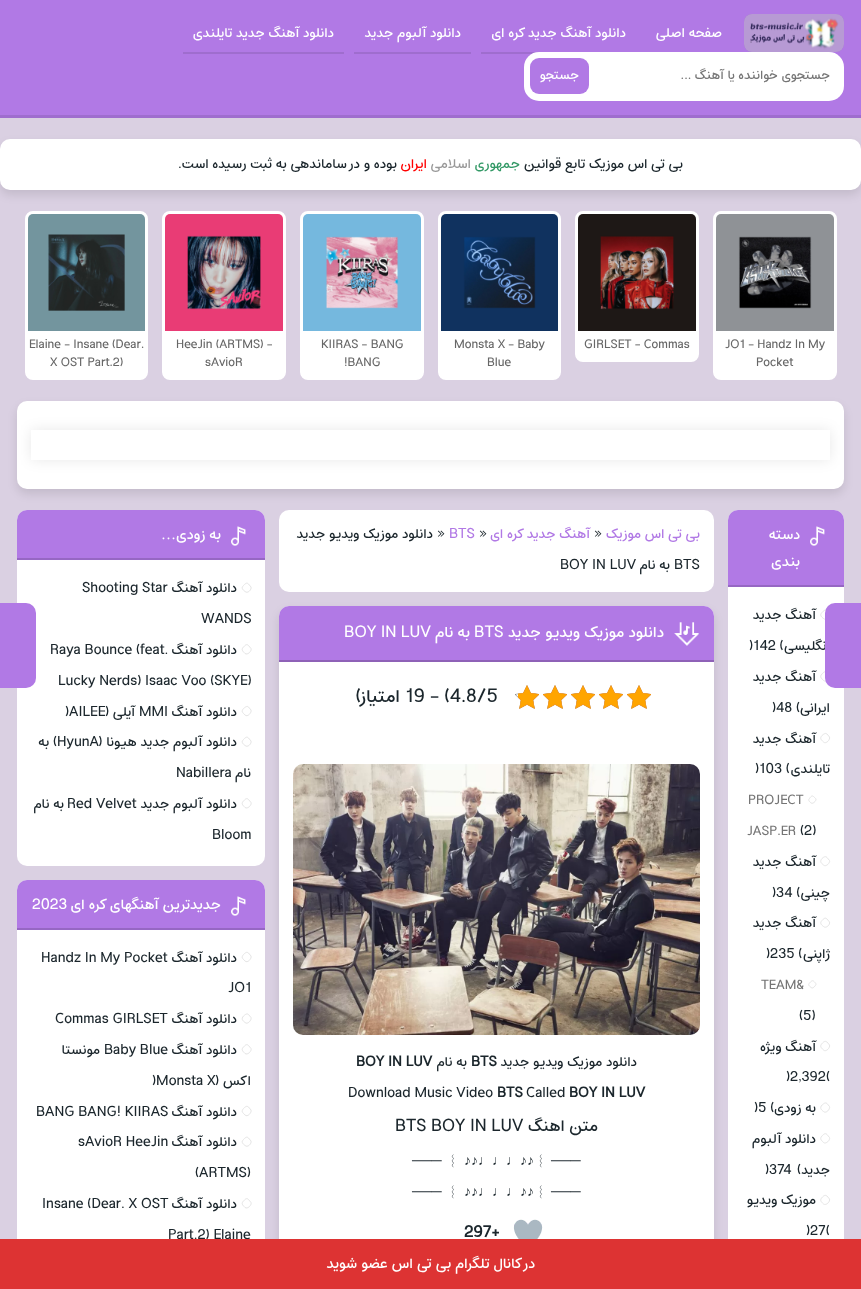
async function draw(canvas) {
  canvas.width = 861;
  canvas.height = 1289;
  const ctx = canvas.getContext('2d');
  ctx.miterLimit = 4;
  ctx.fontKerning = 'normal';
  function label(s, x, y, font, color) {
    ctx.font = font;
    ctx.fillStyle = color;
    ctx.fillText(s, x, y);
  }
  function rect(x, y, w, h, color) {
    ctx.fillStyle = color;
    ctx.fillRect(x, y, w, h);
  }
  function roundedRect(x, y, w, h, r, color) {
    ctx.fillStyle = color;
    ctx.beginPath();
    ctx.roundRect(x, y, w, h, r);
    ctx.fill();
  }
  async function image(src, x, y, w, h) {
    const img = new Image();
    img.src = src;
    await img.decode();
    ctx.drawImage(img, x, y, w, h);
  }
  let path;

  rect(0, 0, 861, 1289, '#dad0e2');
  rect(0, 0, 861, 115, '#b179e5');
  rect(0, 115, 861, 3, '#9f6dce');
  roundedRect(744, 14, 100, 38, 8, '#9f6dce');
  await image('assets/img1.png', 744, 14, 100, 38);
  ctx.direction = 'rtl';
  label('صفحه اصلی', 722, 37, '500 14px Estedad', '#fff');
  label('دانلود آهنگ جدید کره ای', 626, 37, '500 14px Estedad', '#fff');
  rect(481, 52, 58, 2, '#9f6dce');
  label('دانلود آلبوم جدید', 461, 37, '500 14px Estedad', '#fff');
  rect(354, 52, 117, 2, '#9f6dce');
  label('دانلود آهنگ جدید تایلندی', 334, 37, '500 14px Estedad', '#fff');
  rect(183, 52, 161, 2, '#9f6dce');
  roundedRect(524, 52, 320, 49, 15, '#fff');
  label('جستجوی خواننده یا آهنگ ...', 830, 79, '500 13.25px Estedad', '#757575');
  roundedRect(530, 58, 59, 36, 9, '#b179e5');
  label('جستجو', 579, 79, '500 13.25px Estedad', '#fff');
  ctx.fillStyle = '#0000001a';
  ctx.filter = 'blur(5px)';
  ctx.beginPath();
  ctx.roundRect(0, 144, 861, 51, 10);
  ctx.fill();
  ctx.filter = 'none';
  roundedRect(0, 139, 861, 51, 10, '#fff');
  label('بی تی اس موزیک تابع قوانین', 683, 168, '500 14px Estedad', '#1b262c');
  label('جمهوری', 520, 168, '500 14px Estedad', '#396');
  label('اسلامی', 471, 168, '500 14px Estedad', '#999');
  label('ایران', 427, 168, '500 14px Estedad', '#f00');
  label('بوده و در ساماندهی به ثبت رسیده است.', 397, 168, '500 14px Estedad', '#1b262c');
  ctx.fillStyle = '#fff';
  ctx.beginPath();
  ctx.roundRect(714.5, 212.5, 121, 166, 6.5);
  ctx.fill();
  ctx.strokeStyle = '#fff';
  ctx.lineWidth = 3;
  ctx.stroke();
  await image('assets/img2.png', 716, 214, 118, 117);
  ctx.direction = 'ltr';
  label('JO1 - Handz In My', 725, 348, '500 12px Estedad', '#676767');
  label('Pocket', 756, 366, '500 12px Estedad', '#676767');
  ctx.fillStyle = '#fff';
  ctx.beginPath();
  ctx.roundRect(576.5, 212.5, 121, 148, 6.5);
  ctx.fill();
  ctx.stroke();
  await image('assets/img3.png', 578, 214, 118, 117);
  label('GIRLSET - Commas', 584, 348, '500 12px Estedad', '#676767');
  ctx.fillStyle = '#fff';
  ctx.beginPath();
  ctx.roundRect(439.5, 212.5, 120, 166, 6.5);
  ctx.fill();
  ctx.stroke();
  await image('assets/img4.png', 441, 214, 117, 117);
  label('Monsta X - Baby', 454, 348, '500 12px Estedad', '#676767');
  label('Blue', 487, 366, '500 12px Estedad', '#676767');
  ctx.fillStyle = '#fff';
  ctx.beginPath();
  ctx.roundRect(301.5, 212.5, 121, 166, 6.5);
  ctx.fill();
  ctx.stroke();
  await image('assets/img5.png', 303, 214, 118, 117);
  label('KIIRAS - BANG', 321, 348, '500 12px Estedad', '#676767');
  label('!BANG', 344, 366, '500 12px Estedad', '#676767');
  ctx.fillStyle = '#fff';
  ctx.beginPath();
  ctx.roundRect(163.5, 212.5, 121, 166, 6.5);
  ctx.fill();
  ctx.stroke();
  await image('assets/img6.png', 165, 214, 118, 117);
  label('HeeJin (ARTMS) -', 176, 348, '500 12px Estedad', '#676767');
  label('sAvioR', 205, 366, '500 12px Estedad', '#676767');
  ctx.fillStyle = '#fff';
  ctx.beginPath();
  ctx.roundRect(26.5, 212.5, 120, 166, 6.5);
  ctx.fill();
  ctx.stroke();
  await image('assets/img7.png', 28, 214, 117, 117);
  label('Elaine - Insane (Dear.', 29, 348, '500 12px Estedad', '#676767');
  label('X OST Part.2)', 50, 366, '500 12px Estedad', '#676767');
  ctx.fillStyle = '#0000001a';
  ctx.filter = 'blur(5px)';
  ctx.beginPath();
  ctx.roundRect(17, 406, 827, 88, 10);
  ctx.fill();
  ctx.filter = 'none';
  roundedRect(17, 401, 827, 88, 10, '#fff');
  ctx.save();
  path = new Path2D('M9 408H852V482H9ZM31 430H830V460H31Z');
  ctx.clip(path, 'evenodd');
  ctx.fillStyle = '#00000017';
  ctx.filter = 'blur(7px)';
  ctx.beginPath();
  ctx.rect(31, 430, 799, 30);
  ctx.fill();
  ctx.filter = 'none';
  ctx.restore();
  roundedRect(279, 510, 435, 82, 10, '#fff');
  ctx.direction = 'rtl';
  label('بی تی اس موزیک', 700, 538, '500 14px Estedad', '#b179e5');
  ctx.direction = 'ltr';
  label('»', 594, 538, '500 14px Estedad', '#1b262c');
  ctx.direction = 'rtl';
  label('آهنگ جدید کره ای', 590, 538, '500 14px Estedad', '#b179e5');
  ctx.direction = 'ltr';
  label('»', 479, 538, '500 14px Estedad', '#1b262c');
  label('BTS', 449, 538, '500 14px Estedad', '#b179e5');
  label('»', 437, 538, '500 14px Estedad', '#1b262c');
  ctx.direction = 'rtl';
  label('دانلود موزیک ویدیو جدید', 433, 538, '500 14px Estedad', '#1b262c');
  ctx.direction = 'ltr';
  label('BTS', 674, 569, '500 14px Estedad', '#1b262c');
  ctx.direction = 'rtl';
  label('به نام', 670, 569, '500 14px Estedad', '#1b262c');
  ctx.direction = 'ltr';
  label('BOY IN LUV', 560, 569, '500 14px Estedad', '#1b262c');
  ctx.fillStyle = '#0000001a';
  ctx.filter = 'blur(5px)';
  ctx.beginPath();
  ctx.roundRect(279, 611, 435, 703, 10);
  ctx.fill();
  ctx.filter = 'none';
  roundedRect(728, 510, 116, 752, 10, '#fff');
  path = new Path2D('M827 611L829.5 614C830.5 616.5 826 621 823.5 618.5C821 616.5 819.5 615 822 612.5C823.5 611 825 609 827 611Z');
  ctx.strokeStyle = '#e5e5e5';
  ctx.lineWidth = 1;
  ctx.stroke(path);
  ctx.direction = 'rtl';
  label('انگلیسی', 830, 650, '500 14px Estedad', '#1b262c');
  path = new Path2D('M827 672.5L829.5 675.5C830.5 678 826 682.5 823.5 680.5C821 678 819.5 676.5 822 674C823.5 672.5 825 670.5 827 672.5Z');
  ctx.stroke(path);
  ctx.fillStyle = '#b179e5';
  ctx.beginPath();
  ctx.roundRect(825, 603, 36, 85, [10, 0, 0, 10]);
  ctx.fill();
  ctx.font = '500 13px Estedad';
  ctx.fillStyle = '#fff';
  ctx.save();
  ctx.translate(903, 675);
  ctx.rotate(-90 * Math.PI / 180);
  ctx.fillText('پست بعدی', 0, 0);
  ctx.restore();
  roundedRect(279, 606, 435, 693, 10, '#fff');
  ctx.fillStyle = '#b179e5';
  ctx.beginPath();
  ctx.roundRect(279, 606, 435, 56, [10, 10, 0, 0]);
  ctx.fill();
  rect(279, 660, 435, 2, '#8e61b7');
  await image('assets/img8.png', 674, 622, 25, 24);
  label('دانلود موزیک ویدیو جدید', 664, 637, '500 16px Estedad', '#fff');
  ctx.direction = 'ltr';
  label('BTS', 474, 637, '500 16px Estedad', '#fff');
  ctx.direction = 'rtl';
  label('به نام', 470, 637, '500 16px Estedad', '#fff');
  ctx.direction = 'ltr';
  label('BOY IN LUV', 344, 637, '500 16px Estedad', '#fff');
  await image('assets/img9.png', 627, 685, 24, 24);
  await image('assets/img9.png', 599, 685, 24, 24);
  await image('assets/img9.png', 571, 685, 24, 24);
  await image('assets/img9.png', 543, 685, 24, 24);
  await image('assets/img9.png', 515, 685, 24, 24);
  await image('assets/img10.png', 627, 685, 24, 24);
  await image('assets/img10.png', 599, 685, 24, 24);
  await image('assets/img10.png', 571, 685, 24, 24);
  await image('assets/img10.png', 543, 685, 24, 24);
  await image('assets/img11.png', 518, 685, 21, 24);
  label('19 - (4.8/5', 405, 702, '500 19px Estedad', '#1b262c');
  ctx.direction = 'rtl';
  label('امتیاز)', 400, 702, '500 19px Estedad', '#1b262c');
  await image('assets/img12.png', 293, 764, 407, 271);
  label('دانلود موزیک ویدیو جدید', 637, 1066, '500 14px Estedad', '#1b262c');
  ctx.direction = 'ltr';
  label('BTS', 471, 1066, 'bold 14px Estedad', '#1b262c');
  ctx.direction = 'rtl';
  label('به نام', 467, 1066, '500 14px Estedad', '#1b262c');
  ctx.direction = 'ltr';
  label('BOY IN LUV', 356, 1066, 'bold 14px Estedad', '#1b262c');
  label('BOY IN LUV', 569, 1097, 'bold 14px Estedad', '#1b262c');
  label('Called', 526, 1097, '500 14px Estedad', '#1b262c');
  label('BTS', 497, 1097, 'bold 14px Estedad', '#1b262c');
  label('Download Music Video', 348, 1097, '500 14px Estedad', '#1b262c');
  ctx.direction = 'rtl';
  label('متن اهنگ', 598, 1131, '500 17px Estedad', '#1b262c');
  ctx.direction = 'ltr';
  label('BTS BOY IN LUV', 395, 1131, '500 17px Estedad', '#1b262c');
  label('───', 551, 1165, '14px Liberation Serif', '#1b262c');
  label('︴', 534, 1165, '500 14px WenQuanYi Zen Hei', '#1b262c');
  label('♪♪♩♩♩♪♪', 464, 1165, '14px Liberation Serif', '#1b262c');
  label('︴', 446, 1165, '500 14px WenQuanYi Zen Hei', '#1b262c');
  label('───', 412, 1165, '14px Liberation Serif', '#1b262c');
  label('───', 551, 1196, '14px Liberation Serif', '#1b262c');
  label('︴', 534, 1196, '500 14px WenQuanYi Zen Hei', '#1b262c');
  label('♪♪♩♩♩♪♪', 464, 1196, '14px Liberation Serif', '#1b262c');
  label('︴', 446, 1196, '500 14px WenQuanYi Zen Hei', '#1b262c');
  label('───', 412, 1196, '14px Liberation Serif', '#1b262c');
  await image('assets/img13.png', 513, 1219, 30, 20);
  label('297+', 464, 1237, 'bold 16px Estedad', '#1b262c');
  roundedRect(17, 510, 248, 356, 10, '#fff');
  ctx.fillStyle = '#b179e5';
  ctx.beginPath();
  ctx.roundRect(0, 603, 36, 85, [0, 10, 10, 0]);
  ctx.fill();
  ctx.direction = 'rtl';
  ctx.font = '500 13px Estedad';
  ctx.fillStyle = '#fff';
  ctx.save();
  ctx.translate(71, 674);
  ctx.rotate(-90 * Math.PI / 180);
  ctx.fillText('پست قبلی', 0, 0);
  ctx.restore();
  ctx.fillStyle = '#b179e5';
  ctx.beginPath();
  ctx.roundRect(728, 510, 116, 77, [10, 10, 0, 0]);
  ctx.fill();
  rect(728, 585, 116, 2, '#9667c3');
  await image('assets/img14.png', 810, 526, 15, 20);
  label('دسته', 800, 539, '500 15px Estedad', '#fff');
  label('بندی', 800, 566, '500 15px Estedad', '#fff');
  label('آهنگ جدید', 816, 619, '500 14px Estedad', '#1b262c');
  ctx.direction = 'ltr';
  label(')142 (', 749, 650, '500 14px Estedad', '#1b262c');
  ctx.direction = 'rtl';
  label('آهنگ جدید', 816, 681, '500 14px Estedad', '#1b262c');
  label('ایرانی', 830, 712, '500 14px Estedad', '#1b262c');
  ctx.direction = 'ltr';
  label(')48 (', 772, 712, '500 14px Estedad', '#1b262c');
  path = new Path2D('M827 734L829.5 737C830.5 739.5 826 744.5 823.5 742C821 739.5 819.5 738.5 822 735.5C823.5 734.5 825 732.5 827 734Z');
  ctx.stroke(path);
  ctx.direction = 'rtl';
  label('آهنگ جدید', 816, 743, '500 14px Estedad', '#1b262c');
  label('تایلندی', 830, 773, '500 14px Estedad', '#1b262c');
  ctx.direction = 'ltr';
  label(')103 (', 755, 773, '500 14px Estedad', '#1b262c');
  path = new Path2D('M813.5 796.5C815.5 798.5 817 799 815 801.5C814 802.5 812.5 804 811 803C809 801 807.5 800 810 798C810.5 797 812 795 813.5 796.5Z');
  ctx.stroke(path);
  label('PROJECT', 748, 804, '500 13px Estedad', '#757575');
  label('(2)', 800, 835, '500 14px Estedad', '#1b262c');
  label('JASP.ER', 747, 835, '500 13px Estedad', '#757575');
  path = new Path2D('M827 857.5L829.5 860.5C830.5 862.5 826 867.5 823.5 865C821 863 819.5 861.5 822 858.5C823.5 857.5 825 855.5 827 857.5Z');
  ctx.stroke(path);
  ctx.direction = 'rtl';
  label('آهنگ جدید', 816, 866, '500 14px Estedad', '#1b262c');
  label('چینی', 830, 897, '500 14px Estedad', '#1b262c');
  ctx.direction = 'ltr';
  label(')34 (', 772, 897, '500 14px Estedad', '#1b262c');
  path = new Path2D('M827 919L829.5 922C830.5 924.5 826 929 823.5 926.5C821 924.5 819.5 923 822 920.5C823.5 919 825 917 827 919Z');
  ctx.stroke(path);
  ctx.direction = 'rtl';
  label('آهنگ جدید', 816, 927, '500 14px Estedad', '#1b262c');
  label('ژاپنی', 830, 958, '500 14px Estedad', '#1b262c');
  ctx.direction = 'ltr';
  label(')235 (', 766, 958, '500 14px Estedad', '#1b262c');
  path = new Path2D('M813.5 981C815.5 983 817 984 815 986C814 987 812.5 989 811 987.5C809 985.5 807.5 985 810 982.5C810.5 982 812 980 813.5 981Z');
  ctx.stroke(path);
  label('TEAM&', 761, 989, '500 13px Estedad', '#757575');
  label('(5)', 799, 1020, '500 14px Estedad', '#1b262c');
  path = new Path2D('M827 1042L829.5 1045C830.5 1047.5 826 1052.5 823.5 1050C821 1047.5 819.5 1046.5 822 1043.5C823.5 1042 825 1040.5 827 1042Z');
  ctx.stroke(path);
  ctx.direction = 'rtl';
  label('آهنگ ویژه', 816, 1051, '500 14px Estedad', '#1b262c');
  ctx.direction = 'ltr';
  label(')2,392(', 786, 1081, '500 14px Estedad', '#1b262c');
  path = new Path2D('M827 1103.5L829.5 1106.5C830.5 1109 826 1114 823.5 1111.5C821 1109.5 819.5 1108 822 1105C823.5 1104 825 1102 827 1103.5ZM827 1134.5L829.5 1137.5C830.5 1140 826 1144.5 823.5 1142.5C821 1140 819.5 1138.5 822 1136C823.5 1134.5 825 1132.5 827 1134.5Z');
  ctx.stroke(path);
  ctx.direction = 'rtl';
  label('به زودی', 816, 1112, '500 14px Estedad', '#1b262c');
  ctx.direction = 'ltr';
  label(')5 (', 754, 1112, '500 14px Estedad', '#1b262c');
  ctx.direction = 'rtl';
  label('دانلود آلبوم', 816, 1143, '500 14px Estedad', '#1b262c');
  label('جدید', 830, 1174, '500 14px Estedad', '#1b262c');
  ctx.direction = 'ltr';
  label('(', 797, 1174, '500 14px Estedad', '#1b262c');
  label(')374', 765, 1174, '500 14px Estedad', '#1b262c');
  path = new Path2D('M827 1196L829.5 1199C830.5 1201.5 826 1206 823.5 1204C821 1201.5 819.5 1200.5 822 1197.5C823.5 1196 825 1194.5 827 1196Z');
  ctx.stroke(path);
  ctx.direction = 'rtl';
  label('موزیک ویدیو', 816, 1204, '500 14px Estedad', '#1b262c');
  ctx.direction = 'ltr';
  label(')27(', 806, 1235, '500 14px Estedad', '#1b262c');
  ctx.fillStyle = '#b179e5';
  ctx.beginPath();
  ctx.roundRect(17, 510, 248, 50, [10, 10, 0, 0]);
  ctx.fill();
  rect(17, 558, 248, 2, '#9667c3');
  await image('assets/img15.png', 231, 526, 15, 20);
  ctx.direction = 'rtl';
  label('به زودی', 221, 539, '500 15px Estedad', '#fff');
  label('…', 176, 539, '15px Liberation Serif', '#fff');
  path = new Path2D('M248.5 584L251 587C252 589.5 247.5 594 245 591.5C242.5 589.5 241 588 243.5 585.5C245 584 246.5 582 248.5 584Z');
  ctx.stroke(path);
  label('دانلود آهنگ', 237, 592, '500 14px Estedad', '#1b262c');
  ctx.direction = 'ltr';
  label('Shooting Star', 82, 592, '500 14px Estedad', '#1b262c');
  label('WANDS', 201, 623, '500 14px Estedad', '#1b262c');
  path = new Path2D('M248.5 645.5L251 648.5C252 651 247.5 655.5 245 653.5C242.5 651 241 649.5 243.5 647C245 645.5 246.5 643.5 248.5 645.5Z');
  ctx.stroke(path);
  ctx.direction = 'rtl';
  label('دانلود آهنگ', 237, 654, '500 14px Estedad', '#1b262c');
  ctx.direction = 'ltr';
  label('Raya Bounce (feat.', 50, 654, '500 14px Estedad', '#1b262c');
  label('Lucky Nerds) Isaac Voo (SKYE)', 58, 685, '500 14px Estedad', '#1b262c');
  path = new Path2D('M248.5 707L251 710C252 712.5 247.5 717.5 245 715C242.5 712.5 241 711.5 243.5 708.5C245 707.5 246.5 705.5 248.5 707ZM248.5 738L251 741C252 743.5 247.5 748 245 745.5C242.5 743.5 241 742 243.5 739.5C245 738 246.5 736 248.5 738Z');
  ctx.stroke(path);
  ctx.direction = 'rtl';
  label('دانلود آهنگ', 237, 716, '500 14px Estedad', '#1b262c');
  ctx.direction = 'ltr';
  label('MMI', 139, 716, '500 14px Estedad', '#1b262c');
  ctx.direction = 'rtl';
  label('آیلی (', 135, 716, '500 14px Estedad', '#1b262c');
  ctx.direction = 'ltr';
  label(')AILEE', 65, 716, '500 14px Estedad', '#1b262c');
  ctx.direction = 'rtl';
  label('دانلود آلبوم جدید هیونا (', 237, 746, '500 14px Estedad', '#1b262c');
  ctx.direction = 'ltr';
  label('HyunA', 57, 746, '500 14px Estedad', '#1b262c');
  ctx.direction = 'rtl';
  label(') به', 57, 746, '500 14px Estedad', '#1b262c');
  label('نام', 251, 777, '500 14px Estedad', '#1b262c');
  ctx.direction = 'ltr';
  label('Nabillera', 176, 777, '500 14px Estedad', '#1b262c');
  path = new Path2D('M248.5 799.5L251 802.5C252 805 247.5 809.5 245 807.5C242.5 805 241 803.5 243.5 801C245 799.5 246.5 797.5 248.5 799.5Z');
  ctx.stroke(path);
  ctx.direction = 'rtl';
  label('دانلود آلبوم جدید', 237, 808, '500 14px Estedad', '#1b262c');
  ctx.direction = 'ltr';
  label('Red Velvet', 67, 808, '500 14px Estedad', '#1b262c');
  ctx.direction = 'rtl';
  label('به نام', 64, 808, '500 14px Estedad', '#1b262c');
  ctx.direction = 'ltr';
  label('Bloom', 212, 839, '500 14px Estedad', '#1b262c');
  roundedRect(17, 880, 248, 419, 10, '#fff');
  ctx.fillStyle = '#b179e5';
  ctx.beginPath();
  ctx.roundRect(17, 880, 248, 50, [10, 10, 0, 0]);
  ctx.fill();
  rect(17, 928, 248, 2, '#9667c3');
  await image('assets/img15.png', 231, 896, 15, 20);
  ctx.direction = 'rtl';
  label('جدیدترین آهنگهای کره ای', 221, 909, '500 15px Estedad', '#fff');
  ctx.direction = 'ltr';
  label('2023', 32, 909, '500 15px Estedad', '#fff');
  path = new Path2D('M248.5 953L251 956C252 958.5 247.5 963.5 245 961C242.5 958.5 241 957.5 243.5 954.5C245 953 246.5 951.5 248.5 953Z');
  ctx.stroke(path);
  ctx.direction = 'rtl';
  label('دانلود آهنگ', 237, 962, '500 14px Estedad', '#1b262c');
  ctx.direction = 'ltr';
  label('Handz In My Pocket', 41, 962, '500 14px Estedad', '#1b262c');
  label('JO1', 228, 992, '500 14px Estedad', '#1b262c');
  path = new Path2D('M248.5 1014.5L251 1017.5C252 1020 247.5 1025 245 1022.5C242.5 1020.5 241 1019 243.5 1016C245 1015 246.5 1013 248.5 1014.5ZM248.5 1045.5L251 1048.5C252 1051 247.5 1055.5 245 1053.5C242.5 1051 241 1049.5 243.5 1047C245 1045.5 246.5 1043.5 248.5 1045.5Z');
  ctx.stroke(path);
  ctx.direction = 'rtl';
  label('دانلود آهنگ', 237, 1023, '500 14px Estedad', '#1b262c');
  ctx.direction = 'ltr';
  label('Commas GIRLSET', 55, 1023, '500 14px Estedad', '#1b262c');
  ctx.direction = 'rtl';
  label('دانلود آهنگ', 237, 1054, '500 14px Estedad', '#1b262c');
  ctx.direction = 'ltr';
  label('Baby Blue', 104, 1054, '500 14px Estedad', '#1b262c');
  ctx.direction = 'rtl';
  label('مونستا', 100, 1054, '500 14px Estedad', '#1b262c');
  label('اکس (', 251, 1085, '500 14px Estedad', '#1b262c');
  ctx.direction = 'ltr';
  label(')Monsta X', 152, 1085, '500 14px Estedad', '#1b262c');
  path = new Path2D('M248.5 1107L251 1110C252 1112.5 247.5 1117.5 245 1115C242.5 1112.5 241 1111.5 243.5 1108.5C245 1107 246.5 1105.5 248.5 1107ZM248.5 1138L251 1141C252 1143.5 247.5 1148 245 1145.5C242.5 1143.5 241 1142 243.5 1139.5C245 1138 246.5 1136 248.5 1138Z');
  ctx.stroke(path);
  ctx.direction = 'rtl';
  label('دانلود آهنگ', 237, 1116, '500 14px Estedad', '#1b262c');
  ctx.direction = 'ltr';
  label('BANG BANG! KIIRAS', 36, 1116, '500 14px Estedad', '#1b262c');
  ctx.direction = 'rtl';
  label('دانلود آهنگ', 237, 1146, '500 14px Estedad', '#1b262c');
  ctx.direction = 'ltr';
  label('sAvioR HeeJin', 78, 1146, '500 14px Estedad', '#1b262c');
  label('(ARTMS)', 195, 1177, '500 14px Estedad', '#1b262c');
  path = new Path2D('M248.5 1199.5L251 1202.5C252 1205 247.5 1209.5 245 1207.5C242.5 1205 241 1203.5 243.5 1201C245 1199.5 246.5 1197.5 248.5 1199.5Z');
  ctx.stroke(path);
  ctx.direction = 'rtl';
  label('دانلود آهنگ', 237, 1208, '500 14px Estedad', '#1b262c');
  ctx.direction = 'ltr';
  label('Insane (Dear. X OST', 42, 1208, '500 14px Estedad', '#1b262c');
  label('Part.2) Elaine', 168, 1239, '500 14px Estedad', '#1b262c');
  rect(0, 1239, 861, 50, '#d33');
  ctx.direction = 'rtl';
  label('در کانال تلگرام بی تی اس عضو شوید', 535, 1268, '500 15px Estedad', '#fff');
}

draw(document.querySelector('canvas'));
